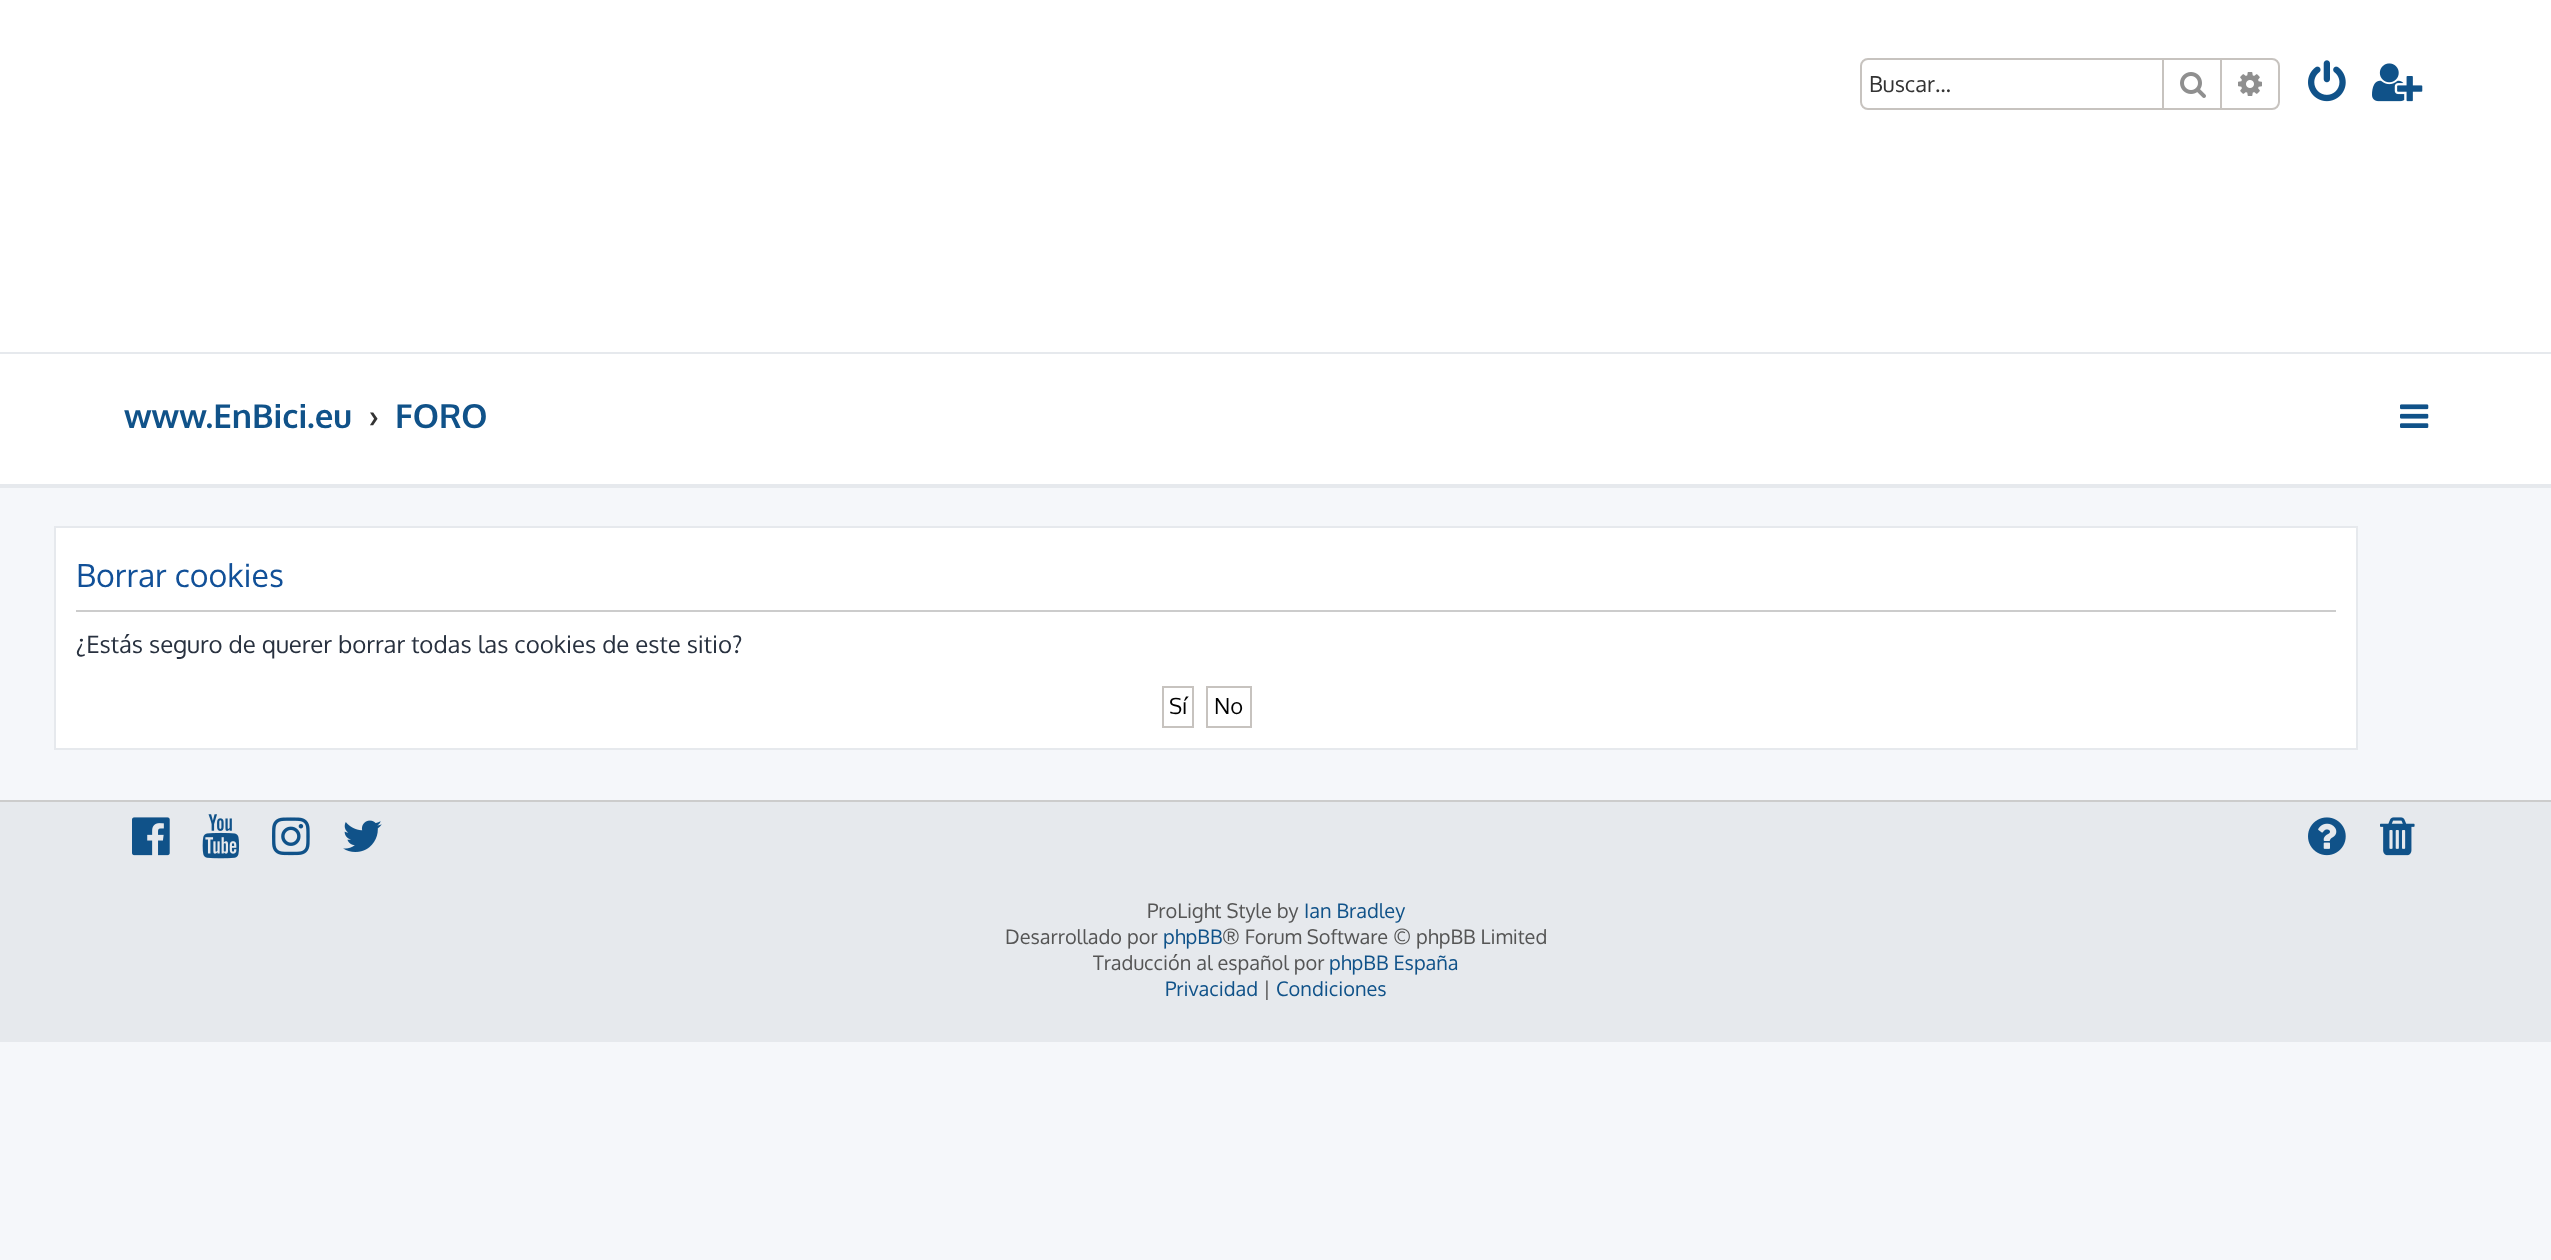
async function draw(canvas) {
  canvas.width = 2551;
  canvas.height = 1260;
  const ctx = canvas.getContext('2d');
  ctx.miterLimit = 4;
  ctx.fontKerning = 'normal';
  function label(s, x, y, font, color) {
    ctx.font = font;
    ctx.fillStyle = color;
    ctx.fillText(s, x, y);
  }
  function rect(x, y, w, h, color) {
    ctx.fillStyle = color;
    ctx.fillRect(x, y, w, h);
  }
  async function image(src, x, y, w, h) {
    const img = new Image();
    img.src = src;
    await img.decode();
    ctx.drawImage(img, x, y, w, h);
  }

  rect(0, 0, 2551, 1260, '#f5f7fa');
  rect(0, 0, 2551, 352, '#fff');
  rect(0, 352, 2551, 2, '#e6e9ed');
  ctx.beginPath();
  ctx.roundRect(1861, 59, 418, 50, 7);
  ctx.strokeStyle = '#c7c3bf';
  ctx.lineWidth = 2;
  ctx.stroke();
  label('Buscar…', 1869, 92, '22px Oxygen', '#333');
  rect(2220, 60, 2, 48, '#c7c3bf');
  rect(2162, 60, 2, 48, '#c7c3bf');
  await image('assets/img1.png', 2180, 72, 26, 26);
  await image('assets/img2.png', 2238, 72, 24, 24);
  await image('assets/img3.png', 2308, 60, 38, 42);
  await image('assets/img4.png', 2372, 63, 51, 39);
  rect(0, 354, 2551, 130, '#fff');
  rect(0, 484, 2551, 4, '#e6e9ed');
  label('www.EnBici.eu', 124, 428, 'bold 33px Oxygen', '#105289');
  label('›', 369, 428, 'bold 33px Oxygen', '#333');
  label('FORO', 395, 428, 'bold 33px Oxygen', '#105289');
  await image('assets/img5.png', 2400, 404, 29, 24);
  ctx.fillStyle = '#fff';
  ctx.beginPath();
  ctx.rect(55, 527, 2302, 222);
  ctx.fill();
  ctx.strokeStyle = '#e6e9ed';
  ctx.stroke();
  rect(76, 610, 2260, 2, '#ccc');
  label('Borrar cookies', 76, 587, '32px Oxygen', '#115098');
  label('¿Estás seguro de querer borrar todas las cookies de este sitio?', 76, 653, '24px Oxygen', '#28313f');
  ctx.strokeStyle = '#c7c3bf';
  ctx.strokeRect(1163, 687, 30, 40);
  label('Sí', 1169, 714, '22px Oxygen', '#000');
  ctx.strokeRect(1207, 687, 44, 40);
  label('No', 1214, 714, '22px Oxygen', '#000');
  rect(0, 802, 2551, 240, '#e6e9ed');
  rect(0, 800, 2551, 2, '#ccc');
  await image('assets/img6.png', 132, 817, 38, 39);
  await image('assets/img7.png', 202, 814, 38, 45);
  await image('assets/img8.png', 272, 817, 38, 39);
  await image('assets/img9.png', 343, 820, 39, 32);
  await image('assets/img10.png', 2308, 817, 38, 39);
  await image('assets/img11.png', 2380, 817, 35, 39);
  label('ProLight Style by', 1147, 918, '20px Oxygen', '#555');
  label('Ian Bradley', 1304, 918, '20px Oxygen', '#105289');
  label('Desarrollado por', 1005, 944, '20px Oxygen', '#555');
  label('phpBB', 1163, 944, '20px Oxygen', '#105289');
  label('® Forum Software © phpBB Limited', 1222, 944, '20px Oxygen', '#555');
  label('Traducción al español por', 1093, 970, '20px Oxygen', '#555');
  label('phpBB España', 1329, 970, '20px Oxygen', '#105289');
  label('Privacidad', 1165, 996, '20px Oxygen', '#105289');
  label('|', 1263, 996, '20px Oxygen', '#555');
  label('Condiciones', 1276, 996, '20px Oxygen', '#105289');
}

draw(document.querySelector('canvas'));
